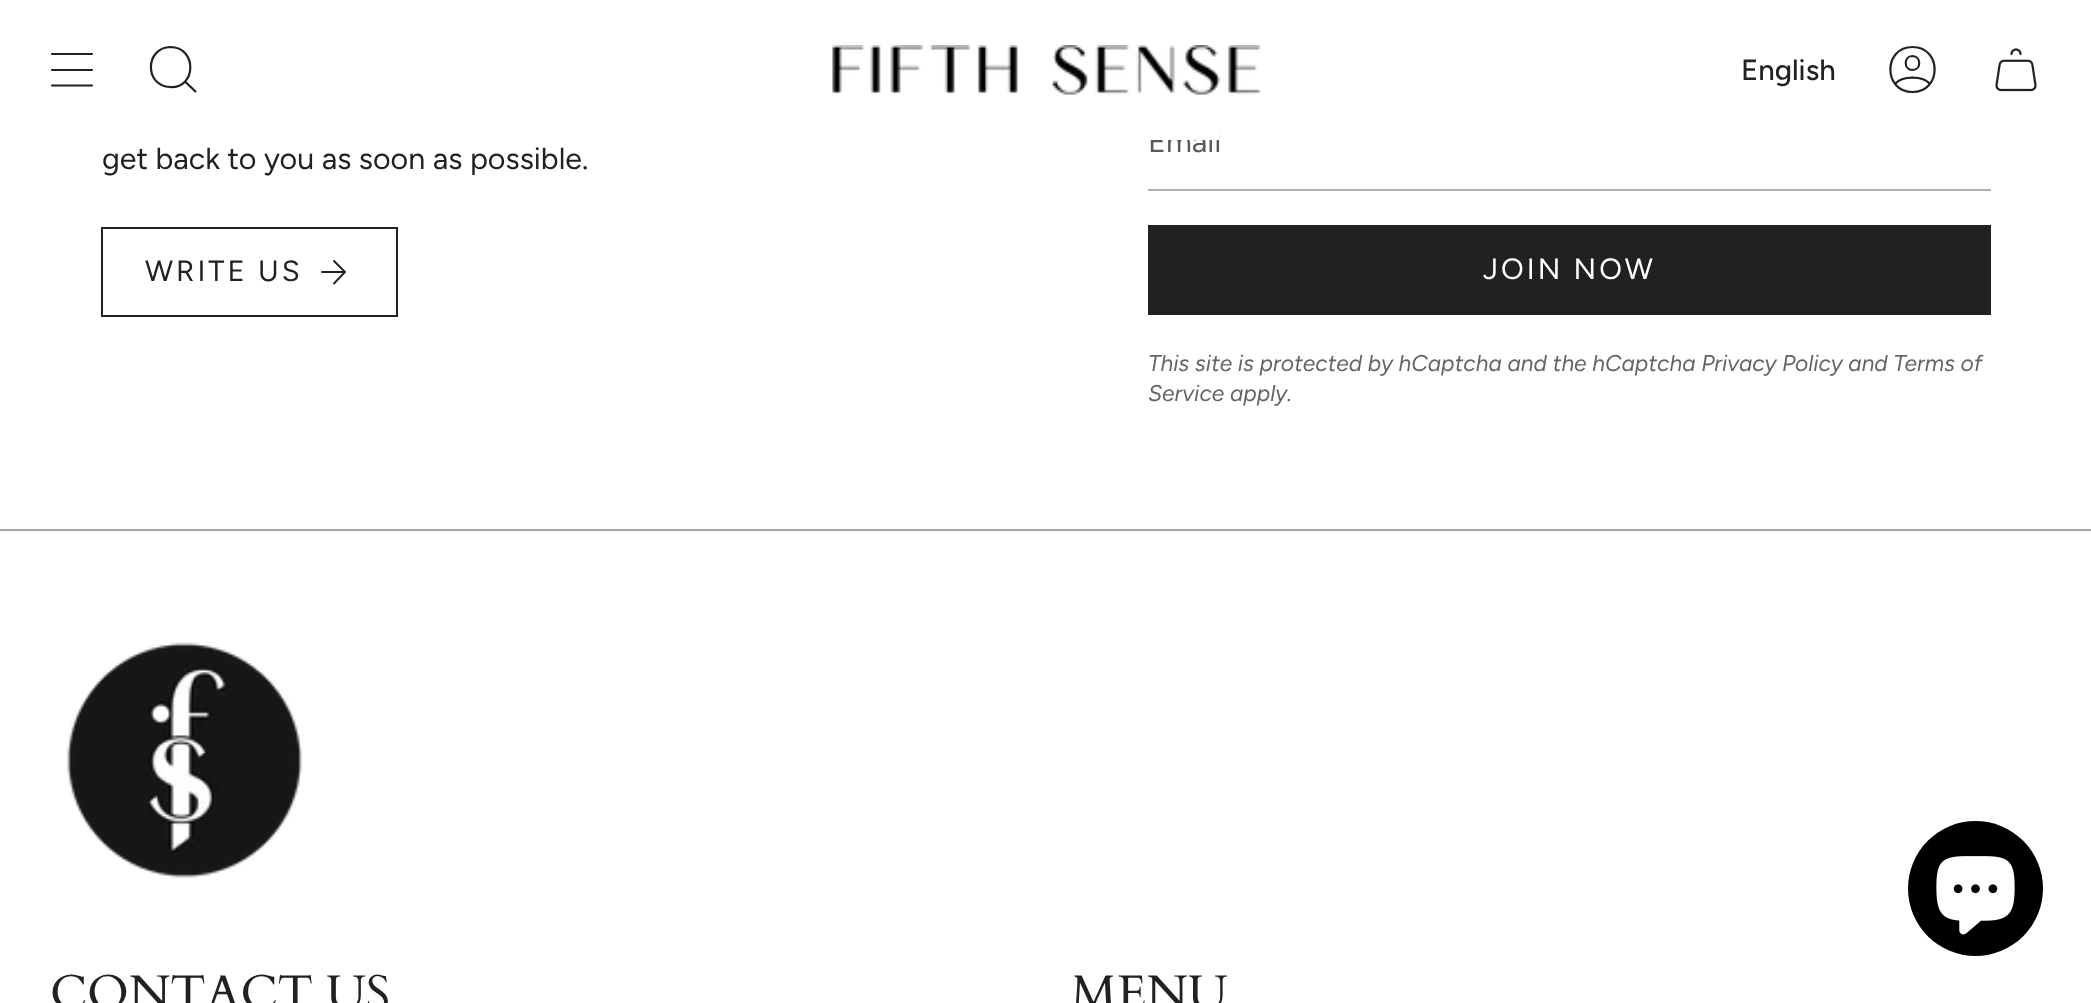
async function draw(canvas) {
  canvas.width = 2091;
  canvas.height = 1003;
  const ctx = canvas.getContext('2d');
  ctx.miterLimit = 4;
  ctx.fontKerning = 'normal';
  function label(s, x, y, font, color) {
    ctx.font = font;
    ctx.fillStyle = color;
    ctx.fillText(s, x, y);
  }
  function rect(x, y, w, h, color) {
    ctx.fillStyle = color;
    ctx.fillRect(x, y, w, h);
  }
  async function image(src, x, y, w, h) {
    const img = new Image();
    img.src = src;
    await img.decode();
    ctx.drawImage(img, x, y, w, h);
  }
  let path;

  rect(0, 0, 2091, 1003, '#fff');
  path = new Path2D('M52 54H92M52 70H92M52 85.5H92');
  ctx.strokeStyle = '#212121';
  ctx.lineWidth = 2.2;
  ctx.lineCap = 'round';
  ctx.lineJoin = 'round';
  ctx.stroke(path);
  path = new Path2D('M170.5 47C197 47 197 88.5 170 87C144 86 145 47.5 170.5 47ZM185 81.5L196 92');
  ctx.lineCap = 'butt';
  ctx.lineJoin = 'miter';
  ctx.stroke(path);
  await image('assets/img1.png', 832, 45, 428, 50);
  label('English', 1741, 80, '500 29.25px Figtree', '#212121');
  path = new Path2D('M1912.5 47C1883 47 1883 92 1912.5 92C1942 92 1942 47 1912.5 47ZM1895 84C1902 75.5 1923 75.5 1930 84M1912.5 70C1921.5 70 1921.5 56.5 1912.5 56C1903.5 56 1903.5 70 1912.5 70Z');
  ctx.lineCap = 'round';
  ctx.lineJoin = 'round';
  ctx.stroke(path);
  await image('assets/img2.png', 1995, 48, 42, 44);
  label('Email', 1148, 152, '30.4px Figtree', '#595959');
  rect(1150, 130, 69, 10, '#fff');
  label('get back to you as soon as possible.', 102, 169, '30.4px Figtree', '#212121');
  ctx.lineWidth = 2;
  ctx.lineJoin = 'miter';
  ctx.strokeRect(102, 228, 295, 88);
  ctx.letterSpacing = '3px';
  label('WRITE US', 145, 281, '29.25px Figtree', '#212121');
  path = new Path2D('M322 272H345M345 272L334 261M345 272L334 283.5');
  ctx.lineWidth = 1.9;
  ctx.lineJoin = 'round';
  ctx.stroke(path);
  rect(1148, 189, 843, 2, '#b1b1b1');
  rect(1148, 225, 843, 90, '#212121');
  label('JOIN NOW', 1483, 279, '29.25px Figtree', '#fff');
  ctx.letterSpacing = '0px';
  label('This site is protected by hCaptcha and the hCaptcha Privacy Policy and Terms of', 1148, 371, 'italic 22.8px Figtree', '#646464');
  label('Service apply.', 1148, 401, 'italic 22.8px Figtree', '#646464');
  ctx.fillStyle = '#000';
  ctx.beginPath();
  ctx.arc(1975.5, 888.5, 67.5, 0, 2 * Math.PI);
  ctx.fill();
  await image('assets/img3.png', 1936, 856, 79, 79);
  rect(0, 529, 2091, 2, '#a7a7a7');
  await image('assets/img4.png', 67, 642, 235, 236);
  label('CONTACT US', 50, 1009, '48.5px Cardo', '#212121');
  label('MENU', 1071, 1009, '48.5px Cardo', '#212121');
}

draw(document.querySelector('canvas'));
